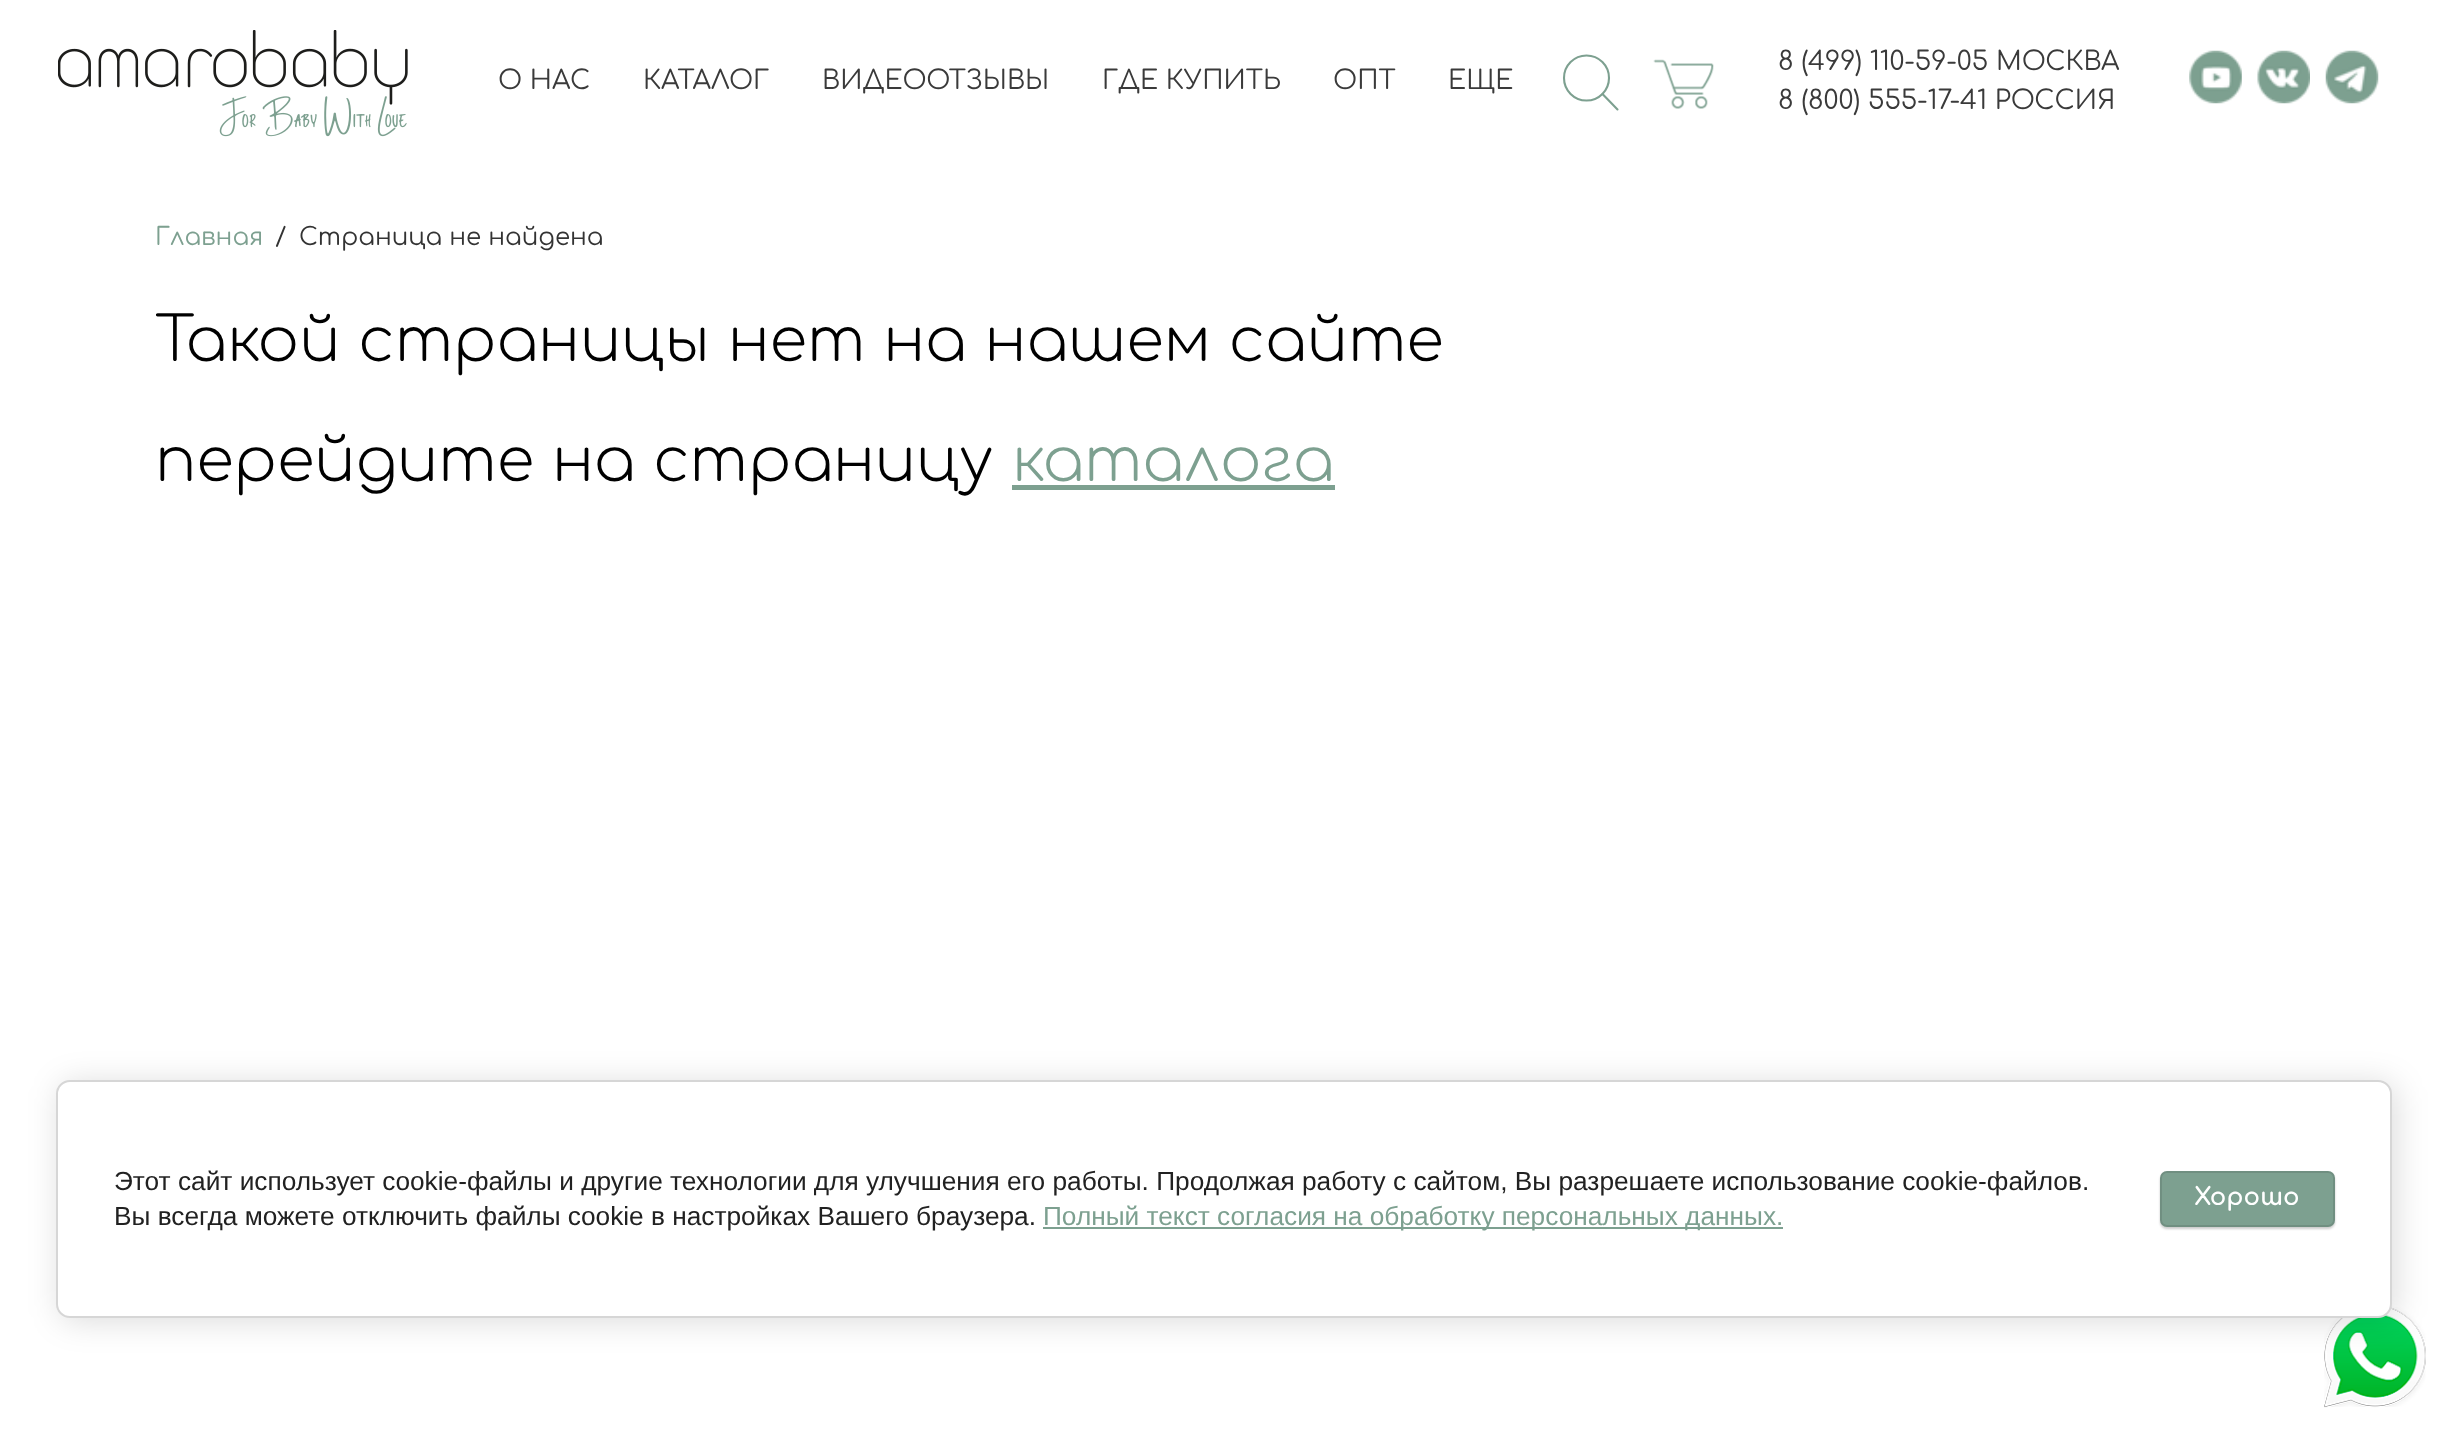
async function draw(canvas) {
  canvas.width = 2448;
  canvas.height = 1429;
  const ctx = canvas.getContext('2d');
  ctx.miterLimit = 4;
  ctx.fontKerning = 'normal';
  function label(s, x, y, font, color) {
    ctx.font = font;
    ctx.fillStyle = color;
    ctx.fillText(s, x, y);
  }
  function rect(x, y, w, h, color) {
    ctx.fillStyle = color;
    ctx.fillRect(x, y, w, h);
  }
  function roundedRect(x, y, w, h, r, color) {
    ctx.fillStyle = color;
    ctx.beginPath();
    ctx.roundRect(x, y, w, h, r);
    ctx.fill();
  }
  async function image(src, x, y, w, h) {
    const img = new Image();
    img.src = src;
    await img.decode();
    ctx.drawImage(img, x, y, w, h);
  }
  let path;

  rect(0, 0, 2448, 1429, '#fff');
  await image('assets/img1.png', 58, 30, 350, 107);
  label('О НАС', 498, 89, '26.25px Comfortaa', '#3a3a3a');
  label('КАТАЛОГ', 643, 89, '26.25px Comfortaa', '#3a3a3a');
  label('ВИДЕООТЗЫВЫ', 822, 89, '26.25px Comfortaa', '#3a3a3a');
  label('ГДЕ КУПИТЬ', 1102, 89, '26.25px Comfortaa', '#3a3a3a');
  label('ОПТ', 1333, 89, '26.25px Comfortaa', '#3a3a3a');
  label('ЕЩЕ', 1448, 89, '26.25px Comfortaa', '#3a3a3a');
  await image('assets/img2.png', 1653, 59, 61, 50);
  ctx.beginPath();
  ctx.arc(1586.5, 78, 22.5, 0, 2 * Math.PI);
  ctx.strokeStyle = '#7da090';
  ctx.lineWidth = 2.1;
  ctx.stroke();
  path = new Path2D('M1602.5 94L1617.5 109.5');
  ctx.lineCap = 'round';
  ctx.stroke(path);
  label('8 (499) 110-59-05 МОСКВА', 1778, 70, '26.25px Comfortaa', '#3a3a3a');
  label('8 (800) 555-17-41 РОССИЯ', 1778, 109, '26.25px Comfortaa', '#3a3a3a');
  await image('assets/img3.png', 2189, 50, 53, 54);
  await image('assets/img4.png', 2257, 50, 53, 54);
  await image('assets/img5.png', 2325, 50, 54, 54);
  label('Главная', 155, 245, '24.5px Comfortaa', '#7da090');
  label('/', 275, 245, '24.5px Comfortaa', '#333');
  label('Страница не найдена', 299, 245, '24.5px Comfortaa', '#333');
  label('Такой страницы нет на нашем сайте', 155, 361, '300 61.25px Comfortaa', '#000');
  label('перейдите на страницу', 155, 481, '300 61.25px Comfortaa', '#000');
  label('каталога', 1012, 481, '300 61.25px Comfortaa', '#7da090');
  rect(1012, 485, 323, 5, '#7da090');
  await image('assets/img6.png', 2324, 1307, 102, 101);
  ctx.fillStyle = '#00000024';
  ctx.filter = 'blur(16px)';
  ctx.beginPath();
  ctx.roundRect(60, 1083, 2336, 238, 14);
  ctx.fill();
  ctx.filter = 'none';
  ctx.fillStyle = '#fff';
  ctx.beginPath();
  ctx.roundRect(57, 1081, 2334, 236, 13);
  ctx.fill();
  ctx.strokeStyle = '#d6d6d6';
  ctx.lineWidth = 2;
  ctx.stroke();
  label('Этот сайт использует cookie-файлы и другие технологии для улучшения его работы. Продолжая работу с сайтом, Вы разрешаете использование cookie-файлов.', 114, 1190, '26.25px Liberation Sans', '#212121');
  label('Вы всегда можете отключить файлы cookie в настройках Вашего браузера.', 114, 1225, '26.25px Liberation Sans', '#212121');
  rect(1043, 1227, 740, 2, '#7da090');
  label('Полный текст согласия на обработку персональных данных.', 1043, 1225, '26.25px Liberation Sans', '#7da090');
  ctx.fillStyle = '#00000033';
  ctx.filter = 'blur(1px)';
  ctx.beginPath();
  ctx.roundRect(2160, 1173, 175, 56, 7);
  ctx.fill();
  ctx.filter = 'none';
  roundedRect(2160, 1171, 175, 56, 7, '#7da090');
  ctx.beginPath();
  ctx.roundRect(2161, 1172, 173, 54, 6);
  ctx.strokeStyle = '#0000001a';
  ctx.stroke();
  label('Хорошо', 2194, 1205, 'bold 24.5px Comfortaa', '#fff');
}

draw(document.querySelector('canvas'));
